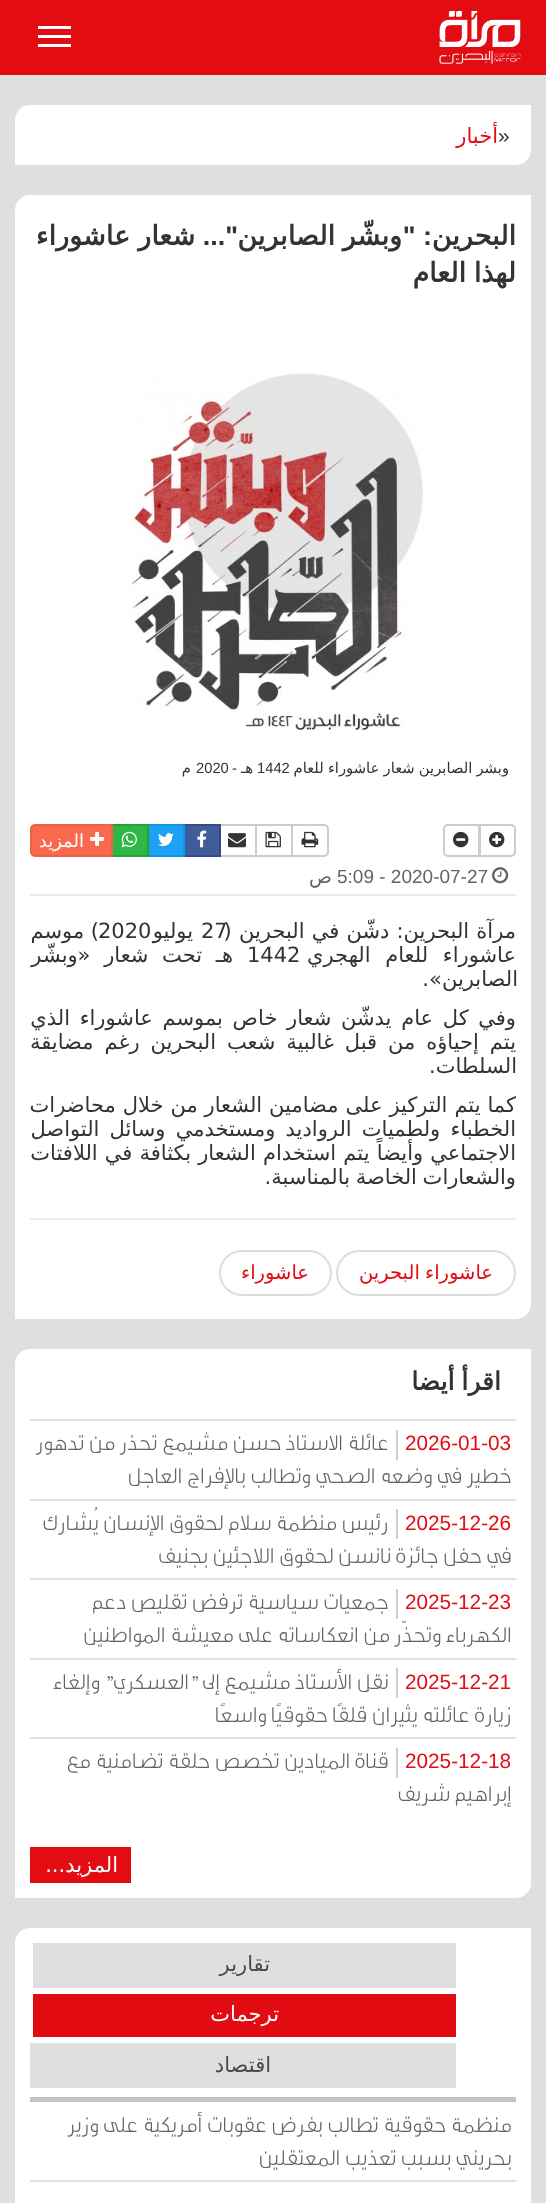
async function draw(canvas) {
  canvas.width = 546;
  canvas.height = 2203;
  const ctx = canvas.getContext('2d');
  ctx.miterLimit = 4;
  ctx.fontKerning = 'normal';
  function label(s, x, y, font, color) {
    ctx.font = font;
    ctx.fillStyle = color;
    ctx.fillText(s, x, y);
  }
  function rect(x, y, w, h, color) {
    ctx.fillStyle = color;
    ctx.fillRect(x, y, w, h);
  }
  async function image(src, x, y, w, h) {
    const img = new Image();
    img.src = src;
    await img.decode();
    ctx.drawImage(img, x, y, w, h);
  }
  let path;

  rect(0, 0, 546, 2203, '#e0dedf');
  rect(0, 0, 546, 75, '#e30c13');
  await image('assets/img1.png', 439, 11, 82, 53);
  rect(38, 26, 33, 3, '#fff');
  rect(38, 35, 33, 3, '#fff');
  rect(38, 44, 33, 3, '#fff');
  ctx.beginPath();
  ctx.roundRect(15, 105, 516, 60, [15, 0, 15, 0]);
  ctx.fill();
  label('»', 498, 143, '21px Liberation Sans', '#333');
  ctx.direction = 'rtl';
  label('أخبار', 498, 143, '21px DejaVu Sans', '#e30c13');
  ctx.fillStyle = '#fff';
  ctx.beginPath();
  ctx.roundRect(15, 195, 516, 1124, [15, 0, 15, 0]);
  ctx.fill();
  label('البحرين', 516, 245, 'bold 27px DejaVu Sans', '#333');
  label(': "', 432, 245, 'bold 27px Liberation Sans', '#333');
  label('وبشّر', 402, 245, 'bold 27px DejaVu Sans', '#333');
  label('الصابرين', 335, 245, 'bold 27px DejaVu Sans', '#333');
  label('"...', 238, 245, 'bold 27px Liberation Sans', '#333');
  label('شعار', 195, 245, 'bold 27px DejaVu Sans', '#333');
  label('عاشوراء', 130, 245, 'bold 27px DejaVu Sans', '#333');
  ctx.wordSpacing = '-1px';
  label('لهذا العام', 516, 282, 'bold 27px DejaVu Sans', '#333');
  await image('assets/img2.png', 131, 373, 292, 358);
  ctx.wordSpacing = '-0.5px';
  label('وبشر الصابرين شعار عاشوراء للعام', 509, 773, '14.75px DejaVu Sans', '#333');
  ctx.wordSpacing = '0px';
  ctx.direction = 'ltr';
  label('1442', 257, 773, '14.75px Liberation Sans', '#333');
  ctx.direction = 'rtl';
  label('هـ', 253, 773, '14.75px DejaVu Sans', '#333');
  label('-', 237, 773, '14.75px Liberation Sans', '#333');
  ctx.direction = 'ltr';
  label('2020', 196, 773, '14.75px Liberation Sans', '#333');
  ctx.direction = 'rtl';
  label('م', 191, 773, '14.75px DejaVu Sans', '#333');
  ctx.beginPath();
  ctx.roundRect(480, 825, 35, 31, [0, 4, 4, 0]);
  ctx.strokeStyle = '#ccc';
  ctx.lineWidth = 2;
  ctx.stroke();
  await image('assets/img3.png', 489, 831, 16, 17);
  ctx.fillStyle = '#fff';
  ctx.beginPath();
  ctx.roundRect(444, 825, 35, 31, [4, 0, 0, 4]);
  ctx.fill();
  ctx.stroke();
  await image('assets/img4.png', 453, 831, 16, 17);
  ctx.beginPath();
  ctx.roundRect(292, 825, 36, 31, [0, 4, 4, 0]);
  ctx.stroke();
  await image('assets/img5.png', 301, 831, 18, 17);
  ctx.strokeRect(256, 825, 36, 31);
  await image('assets/img6.png', 265, 831, 16, 17);
  ctx.strokeRect(220, 825, 36, 31);
  await image('assets/img7.png', 228, 833, 18, 15);
  ctx.fillStyle = '#405c9a';
  ctx.beginPath();
  ctx.rect(184, 825, 36, 31);
  ctx.fill();
  ctx.strokeStyle = '#334c83';
  ctx.stroke();
  await image('assets/img8.png', 197, 830, 10, 18);
  ctx.fillStyle = '#1da1f2';
  ctx.beginPath();
  ctx.rect(148, 825, 36, 31);
  ctx.fill();
  ctx.strokeStyle = '#0c95e8';
  ctx.stroke();
  await image('assets/img9.png', 158, 833, 16, 13);
  ctx.fillStyle = '#2eb743';
  ctx.beginPath();
  ctx.rect(112, 825, 36, 31);
  ctx.fill();
  ctx.strokeStyle = '#26a038';
  ctx.stroke();
  await image('assets/img10.png', 121, 831, 16, 17);
  ctx.fillStyle = '#f8694d';
  ctx.beginPath();
  ctx.roundRect(31, 825, 81, 31, [4, 0, 0, 4]);
  ctx.fill();
  ctx.strokeStyle = '#ea6349';
  ctx.stroke();
  await image('assets/img11.png', 90, 831, 15, 15);
  label('المزيد', 84, 847, '18px DejaVu Sans', '#fff');
  rect(30, 894, 486, 2, '#eaeaea');
  await image('assets/img12.png', 492, 867, 17, 17);
  ctx.direction = 'ltr';
  label('5:09 - 2020-07-27', 337, 883, '19px Liberation Sans', '#636363');
  ctx.direction = 'rtl';
  label('ص', 332, 883, '19px DejaVu Sans', '#636363');
  ctx.direction = 'ltr';
  label('27', 201, 938, '21px DejaVu Sans', '#333');
  ctx.wordSpacing = '0.5px';
  ctx.direction = 'rtl';
  label('مرآة البحرين: دشّن في البحرين (', 516, 938, '21px DejaVu Sans', '#333');
  ctx.wordSpacing = '0px';
  label('يوليو', 193, 938, '21px DejaVu Sans', '#333');
  ctx.direction = 'ltr';
  label('2020', 98, 938, '21px DejaVu Sans', '#333');
  ctx.direction = 'rtl';
  label(') موسم', 99, 938, '21px DejaVu Sans', '#333');
  ctx.wordSpacing = '8px';
  label('عاشوراء للعام الهجري', 516, 962, '21px DejaVu Sans', '#333');
  ctx.wordSpacing = '0px';
  ctx.direction = 'ltr';
  label('1442', 247, 962, '21px DejaVu Sans', '#333');
  ctx.wordSpacing = '7px';
  ctx.direction = 'rtl';
  label('هـ تحت شعار «وبشّر', 233, 962, '21px DejaVu Sans', '#333');
  ctx.wordSpacing = '0px';
  label('الصابرين».', 518, 986, '21px DejaVu Sans', '#333');
  ctx.wordSpacing = '3px';
  label('وفي كل عام يدشّن شعار خاص بموسم عاشوراء الذي', 516, 1025, '21px DejaVu Sans', '#333');
  ctx.wordSpacing = '4.25px';
  label('يتم إحياؤه من قبل غالبية شعب البحرين رغم مضايقة', 516, 1049, '21px DejaVu Sans', '#333');
  ctx.wordSpacing = '0px';
  label('السلطات.', 517, 1073, '21px DejaVu Sans', '#333');
  ctx.wordSpacing = '0.25px';
  label('كما يتم التركيز على مضامين الشعار من خلال محاضرات', 516, 1112, '21px DejaVu Sans', '#333');
  ctx.wordSpacing = '3.5px';
  label('الخطباء ولطميات الرواديد ومستخدمي وسائل التواصل', 516, 1136, '21px DejaVu Sans', '#333');
  ctx.wordSpacing = '0.5px';
  label('الاجتماعي وأيضاً يتم استخدام الشعار بكثافة في اللافتات', 516, 1160, '21px DejaVu Sans', '#333');
  ctx.wordSpacing = '-1px';
  label('والشعارات الخاصة بالمناسبة.', 516, 1184, '21px DejaVu Sans', '#333');
  rect(30, 1218, 486, 2, '#eee');
  ctx.beginPath();
  ctx.roundRect(337, 1251, 178, 44, 22);
  ctx.strokeStyle = '#ddd';
  ctx.stroke();
  label('عاشوراء البحرين', 493, 1279, '19.5px DejaVu Sans', '#e30c13');
  ctx.beginPath();
  ctx.roundRect(220, 1251, 111, 44, 22);
  ctx.stroke();
  ctx.wordSpacing = '0px';
  label('عاشوراء', 309, 1279, '19.5px DejaVu Sans', '#e30c13');
  ctx.fillStyle = '#fff';
  ctx.beginPath();
  ctx.roundRect(15, 1349, 516, 549, [15, 0, 15, 0]);
  ctx.fill();
  ctx.wordSpacing = '-1px';
  label('اقرأ أيضا', 501, 1390, 'bold 25px DejaVu Sans', '#333');
  rect(30, 1419, 486, 2, '#e2e1e1');
  rect(396, 1430, 2, 30, '#cdcdcd');
  ctx.wordSpacing = '0px';
  ctx.direction = 'ltr';
  label('2026-01-03', 405, 1450, '20.75px Liberation Sans', '#e30c13');
  ctx.direction = 'rtl';
  label('عائلة الاستاذ حسن مشيمع تحذر من تدهور', 389, 1450, '23.1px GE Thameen', '#636363');
  label('خطير في وضعه الصحي وتطالب بالإفراج العاجل', 512, 1483, '23.1px GE Thameen', '#636363');
  rect(30, 1499, 486, 2, '#e2e1e1');
  rect(396, 1509, 2, 30, '#cdcdcd');
  ctx.direction = 'ltr';
  label('2025-12-26', 405, 1530, '20.75px Liberation Sans', '#e30c13');
  ctx.direction = 'rtl';
  label('رئيس منظمة سلام لحقوق الإنسان يُشارك', 389, 1530, '23.1px GE Thameen', '#636363');
  label('في حفل جائزة نانسن لحقوق اللاجئين بجنيف', 512, 1563, '23.1px GE Thameen', '#636363');
  rect(30, 1578, 486, 2, '#e2e1e1');
  rect(396, 1589, 2, 30, '#cdcdcd');
  ctx.direction = 'ltr';
  label('2025-12-23', 405, 1609, '20.75px Liberation Sans', '#e30c13');
  ctx.direction = 'rtl';
  label('جمعيات سياسية ترفض تقليص دعم', 389, 1609, '23.1px GE Thameen', '#636363');
  label('الكهرباء وتحذّر من انعكاساته على معيشة المواطنين', 512, 1642, '23.1px GE Thameen', '#636363');
  rect(30, 1658, 486, 2, '#e2e1e1');
  rect(396, 1668, 2, 30, '#cdcdcd');
  ctx.direction = 'ltr';
  label('2025-12-21', 405, 1689, '20.75px Liberation Sans', '#e30c13');
  ctx.direction = 'rtl';
  label('نقل الأستاذ مشيمع إلى "العسكري" وإلغاء', 389, 1689, '23.1px GE Thameen', '#636363');
  label('زيارة عائلته يثيران قلقًا حقوقيًا واسعًا', 512, 1722, '23.1px GE Thameen', '#636363');
  rect(30, 1737, 486, 2, '#e2e1e1');
  rect(396, 1748, 2, 30, '#cdcdcd');
  ctx.direction = 'ltr';
  label('2025-12-18', 405, 1768, '20.75px Liberation Sans', '#e30c13');
  ctx.direction = 'rtl';
  label('قناة الميادين تخصص حلقة تضامنية مع', 389, 1768, '23.1px GE Thameen', '#636363');
  label('إبراهيم شريف', 512, 1801, '23.1px GE Thameen', '#636363');
  rect(30, 1847, 101, 36, '#e30c13');
  label('المزيد...', 118, 1872, '21px DejaVu Sans', '#fff');
  path = new Path2D('M30 1928H531V2203C531 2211.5 524.5 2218 516 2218H15V1943C15 1934.5 21.5 1928 30 1928Z');
  ctx.fill(path);
  rect(30, 2097, 486, 5, '#c4c4c4');
  rect(33, 1943, 423, 45, '#e0dede');
  label('تقارير', 270, 1971, '21px DejaVu Sans', '#4b4b4e');
  rect(33, 1994, 423, 43, '#e30b12');
  label('ترجمات', 279, 2021, '21px DejaVu Sans', '#fff');
  rect(30, 2043, 426, 45, '#e0dede');
  label('اقتصاد', 271, 2072, '21px DejaVu Sans', '#4b4b4e');
  label('منظمة حقوقية تطالب بفرض عقوبات أمريكية على وزير', 512, 2132, '23.1px GE Thameen', '#636363');
  label('بحريني بسبب تعذيب المعتقلين', 512, 2165, '23.1px GE Thameen', '#636363');
  rect(30, 2180, 486, 2, '#e2e1e1');
}

draw(document.querySelector('canvas'));
